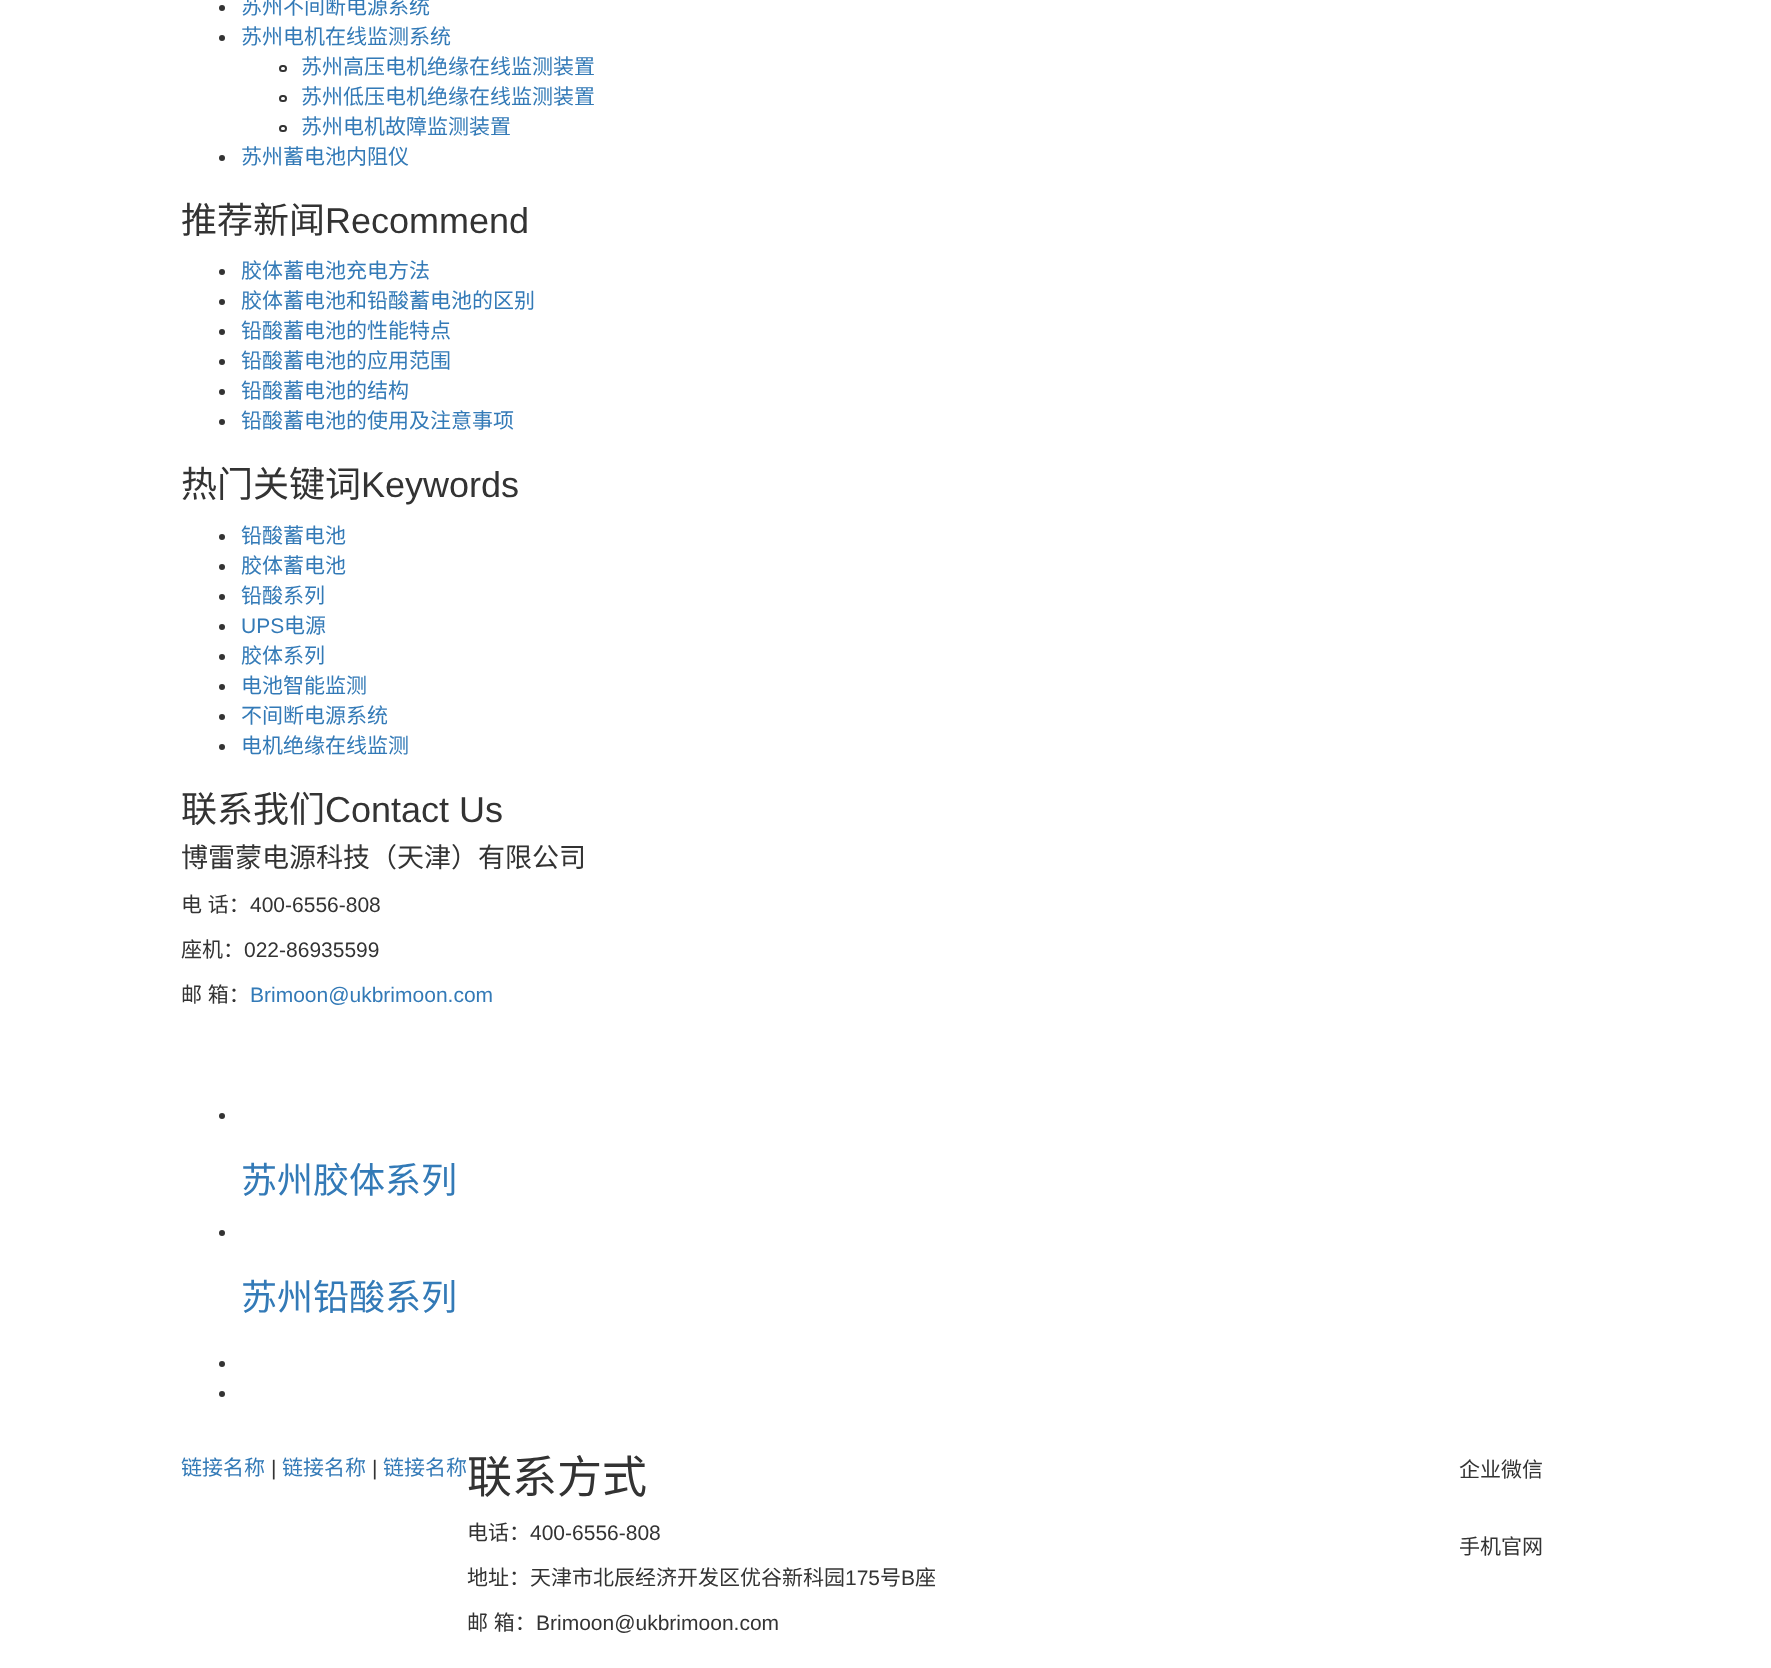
async function draw(canvas) {
  canvas.width = 1771;
  canvas.height = 1668;
  const ctx = canvas.getContext('2d');
  ctx.miterLimit = 4;
  ctx.fontKerning = 'normal';
  function label(s, x, y, font, color) {
    ctx.font = font;
    ctx.fillStyle = color;
    ctx.fillText(s, x, y);
  }
  function rect(x, y, w, h, color) {
    ctx.fillStyle = color;
    ctx.fillRect(x, y, w, h);
  }

  rect(0, 0, 1771, 1668, '#fff');
  ctx.fillStyle = '#333';
  ctx.beginPath();
  ctx.arc(222, 8, 3, 0, 2 * Math.PI);
  ctx.fill();
  label('苏州不间断电源系统', 241, 14, '21px Noto Sans CJK SC', '#337ab7');
  ctx.fillStyle = '#333';
  ctx.beginPath();
  ctx.arc(222, 38, 3, 0, 2 * Math.PI);
  ctx.fill();
  label('苏州电机在线监测系统', 241, 44, '21px Noto Sans CJK SC', '#337ab7');
  ctx.beginPath();
  ctx.roundRect(280, 66, 6, 5, 2.5);
  ctx.strokeStyle = '#333';
  ctx.lineWidth = 2;
  ctx.stroke();
  label('苏州高压电机绝缘在线监测装置', 301, 74, '21px Noto Sans CJK SC', '#337ab7');
  ctx.beginPath();
  ctx.roundRect(280, 96, 6, 5, 2.5);
  ctx.stroke();
  label('苏州低压电机绝缘在线监测装置', 301, 104, '21px Noto Sans CJK SC', '#337ab7');
  ctx.beginPath();
  ctx.roundRect(280, 126, 6, 5, 2.5);
  ctx.stroke();
  label('苏州电机故障监测装置', 301, 134, '21px Noto Sans CJK SC', '#337ab7');
  ctx.fillStyle = '#333';
  ctx.beginPath();
  ctx.arc(222, 158, 3, 0, 2 * Math.PI);
  ctx.fill();
  label('苏州蓄电池内阻仪', 241, 164, '21px Noto Sans CJK SC', '#337ab7');
  label('推荐新闻', 181, 233, '36px Noto Sans CJK SC', '#333');
  label('Recommend', 325, 233, '36px Liberation Sans', '#333');
  ctx.beginPath();
  ctx.arc(222, 272, 3, 0, 2 * Math.PI);
  ctx.fill();
  label('胶体蓄电池充电方法', 241, 278, '21px Noto Sans CJK SC', '#337ab7');
  ctx.fillStyle = '#333';
  ctx.beginPath();
  ctx.arc(222, 302, 3, 0, 2 * Math.PI);
  ctx.fill();
  label('胶体蓄电池和铅酸蓄电池的区别', 241, 308, '21px Noto Sans CJK SC', '#337ab7');
  ctx.fillStyle = '#333';
  ctx.beginPath();
  ctx.arc(222, 332, 3, 0, 2 * Math.PI);
  ctx.fill();
  label('铅酸蓄电池的性能特点', 241, 338, '21px Noto Sans CJK SC', '#337ab7');
  ctx.fillStyle = '#333';
  ctx.beginPath();
  ctx.arc(222, 362, 3, 0, 2 * Math.PI);
  ctx.fill();
  label('铅酸蓄电池的应用范围', 241, 368, '21px Noto Sans CJK SC', '#337ab7');
  ctx.fillStyle = '#333';
  ctx.beginPath();
  ctx.arc(222, 392, 3, 0, 2 * Math.PI);
  ctx.fill();
  label('铅酸蓄电池的结构', 241, 398, '21px Noto Sans CJK SC', '#337ab7');
  ctx.fillStyle = '#333';
  ctx.beginPath();
  ctx.arc(222, 422, 3, 0, 2 * Math.PI);
  ctx.fill();
  label('铅酸蓄电池的使用及注意事项', 241, 428, '21px Noto Sans CJK SC', '#337ab7');
  label('热门关键词', 181, 497, '36px Noto Sans CJK SC', '#333');
  label('Keywords', 361, 497, '36px Liberation Sans', '#333');
  ctx.beginPath();
  ctx.arc(222, 537, 3, 0, 2 * Math.PI);
  ctx.fill();
  label('铅酸蓄电池', 241, 543, '21px Noto Sans CJK SC', '#337ab7');
  ctx.fillStyle = '#333';
  ctx.beginPath();
  ctx.arc(222, 567, 3, 0, 2 * Math.PI);
  ctx.fill();
  label('胶体蓄电池', 241, 573, '21px Noto Sans CJK SC', '#337ab7');
  ctx.fillStyle = '#333';
  ctx.beginPath();
  ctx.arc(222, 597, 3, 0, 2 * Math.PI);
  ctx.fill();
  label('铅酸系列', 241, 603, '21px Noto Sans CJK SC', '#337ab7');
  ctx.fillStyle = '#333';
  ctx.beginPath();
  ctx.arc(222, 627, 3, 0, 2 * Math.PI);
  ctx.fill();
  label('UPS', 241, 633, '21px Liberation Sans', '#337ab7');
  label('电源', 284, 633, '21px Noto Sans CJK SC', '#337ab7');
  ctx.fillStyle = '#333';
  ctx.beginPath();
  ctx.arc(222, 657, 3, 0, 2 * Math.PI);
  ctx.fill();
  label('胶体系列', 241, 663, '21px Noto Sans CJK SC', '#337ab7');
  ctx.fillStyle = '#333';
  ctx.beginPath();
  ctx.arc(222, 687, 3, 0, 2 * Math.PI);
  ctx.fill();
  label('电池智能监测', 241, 693, '21px Noto Sans CJK SC', '#337ab7');
  ctx.fillStyle = '#333';
  ctx.beginPath();
  ctx.arc(222, 717, 3, 0, 2 * Math.PI);
  ctx.fill();
  label('不间断电源系统', 241, 723, '21px Noto Sans CJK SC', '#337ab7');
  ctx.fillStyle = '#333';
  ctx.beginPath();
  ctx.arc(222, 747, 3, 0, 2 * Math.PI);
  ctx.fill();
  label('电机绝缘在线监测', 241, 753, '21px Noto Sans CJK SC', '#337ab7');
  label('联系我们', 181, 822, '36px Noto Sans CJK SC', '#333');
  label('Contact Us', 325, 822, '36px Liberation Sans', '#333');
  label('博雷蒙电源科技（天津）有限公司', 181, 867, '27px Noto Sans CJK SC', '#333');
  ctx.wordSpacing = '1px';
  label('电 话：', 181, 912, '21px Noto Sans CJK SC', '#333');
  ctx.wordSpacing = '0px';
  label('400-6556-808', 250, 912, '21px Liberation Sans', '#333');
  label('座机：', 181, 957, '21px Noto Sans CJK SC', '#333');
  label('022-86935599', 244, 957, '21px Liberation Sans', '#333');
  ctx.wordSpacing = '1px';
  label('邮 箱：', 181, 1002, '21px Noto Sans CJK SC', '#333');
  ctx.wordSpacing = '0px';
  label('Brimoon@ukbrimoon.com', 250, 1002, '21px Liberation Sans', '#337ab7');
  ctx.fillStyle = '#333';
  ctx.beginPath();
  ctx.arc(222, 1116, 3, 0, 2 * Math.PI);
  ctx.fill();
  label('苏州胶体系列', 241, 1193, '36px Noto Sans CJK SC', '#337ab7');
  ctx.fillStyle = '#333';
  ctx.beginPath();
  ctx.arc(222, 1233, 3, 0, 2 * Math.PI);
  ctx.fill();
  label('苏州铅酸系列', 241, 1310, '36px Noto Sans CJK SC', '#337ab7');
  ctx.fillStyle = '#333';
  ctx.beginPath();
  ctx.arc(222, 1364, 3, 0, 2 * Math.PI);
  ctx.fill();
  ctx.beginPath();
  ctx.arc(222, 1394, 3, 0, 2 * Math.PI);
  ctx.fill();
  label('链接名称', 181, 1475, '21px Noto Sans CJK SC', '#337ab7');
  label('|', 271, 1475, '21px Liberation Sans', '#333');
  label('链接名称', 282, 1475, '21px Noto Sans CJK SC', '#337ab7');
  label('|', 372, 1475, '21px Liberation Sans', '#333');
  label('链接名称', 383, 1475, '21px Noto Sans CJK SC', '#337ab7');
  label('联系方式', 467, 1493, '45px Noto Sans CJK SC', '#333');
  label('电话：', 467, 1540, '21px Noto Sans CJK SC', '#333');
  label('400-6556-808', 530, 1540, '21px Liberation Sans', '#333');
  label('地址：天津市北辰经济开发区优谷新科园', 467, 1585, '21px Noto Sans CJK SC', '#333');
  label('175', 845, 1585, '21px Liberation Sans', '#333');
  label('号', 880, 1585, '21px Noto Sans CJK SC', '#333');
  label('B', 901, 1585, '21px Liberation Sans', '#333');
  label('座', 915, 1585, '21px Noto Sans CJK SC', '#333');
  ctx.wordSpacing = '1px';
  label('邮 箱：', 467, 1630, '21px Noto Sans CJK SC', '#333');
  ctx.wordSpacing = '0px';
  label('Brimoon@ukbrimoon.com', 536, 1630, '21px Liberation Sans', '#333');
  label('企业微信', 1459, 1477, '21px Noto Sans CJK SC', '#333');
  label('手机官网', 1459, 1554, '21px Noto Sans CJK SC', '#333');
}

draw(document.querySelector('canvas'));
